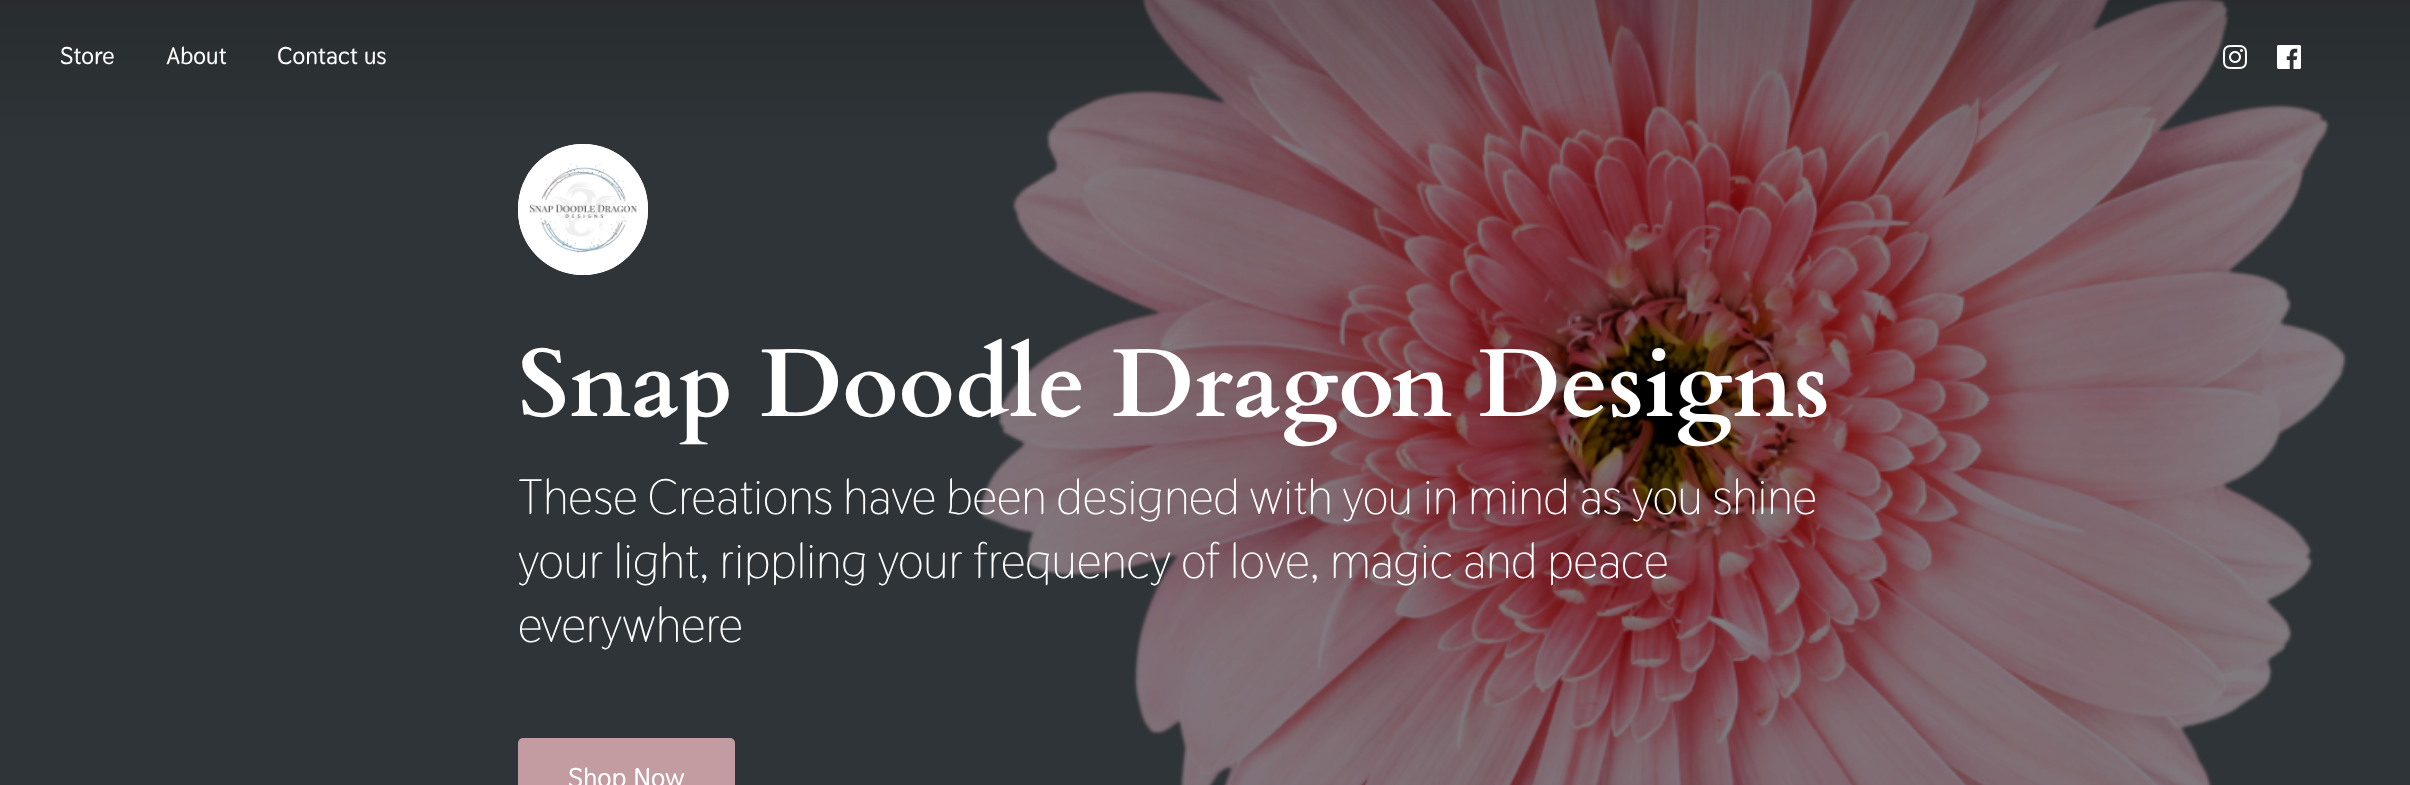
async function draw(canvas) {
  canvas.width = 2410;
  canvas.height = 785;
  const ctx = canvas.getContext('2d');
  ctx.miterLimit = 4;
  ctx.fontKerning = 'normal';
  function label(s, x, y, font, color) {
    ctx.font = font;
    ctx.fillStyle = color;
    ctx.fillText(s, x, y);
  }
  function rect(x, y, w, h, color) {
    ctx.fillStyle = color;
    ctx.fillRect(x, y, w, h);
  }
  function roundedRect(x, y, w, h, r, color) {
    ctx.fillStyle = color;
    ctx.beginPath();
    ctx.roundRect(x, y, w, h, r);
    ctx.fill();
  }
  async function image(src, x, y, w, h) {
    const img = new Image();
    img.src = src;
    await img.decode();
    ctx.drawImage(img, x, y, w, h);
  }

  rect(0, 0, 2410, 785, '#fff');
  await image('assets/img1.png', 0, 0, 2410, 785);
  label('Store', 60, 64, 'bold 24px Thasadith', '#fff');
  label('About', 166, 64, 'bold 24px Thasadith', '#fff');
  label('Contact us', 277, 64, 'bold 24px Thasadith', '#fff');
  await image('assets/img2.png', 2223, 45, 24, 24);
  await image('assets/img3.png', 2277, 45, 24, 24);
  roundedRect(518, 144, 130, 131, 65, '#fff');
  await image('assets/img4.png', 526, 153, 113, 113);
  ctx.beginPath();
  ctx.roundRect(522.5, 148.5, 121, 122, 60.5);
  ctx.strokeStyle = '#fff';
  ctx.lineWidth = 9;
  ctx.stroke();
  label('Snap Doodle Dragon Designs', 518, 416, 'bold 96.4px Cardo', '#fff');
  label('These Creations have been designed with you in mind as you shine', 518, 514, '49.5px Thasadith', '#fff');
  label('your light, rippling your frequency of love, magic and peace', 518, 578, '49.5px Thasadith', '#fff');
  label('everywhere', 518, 642, '49.5px Thasadith', '#fff');
  roundedRect(518, 738, 217, 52, 5, '#c29ca0');
  label('Shop Now', 568, 787, 'bold 27px Thasadith', '#fff');
}

draw(document.querySelector('canvas'));
